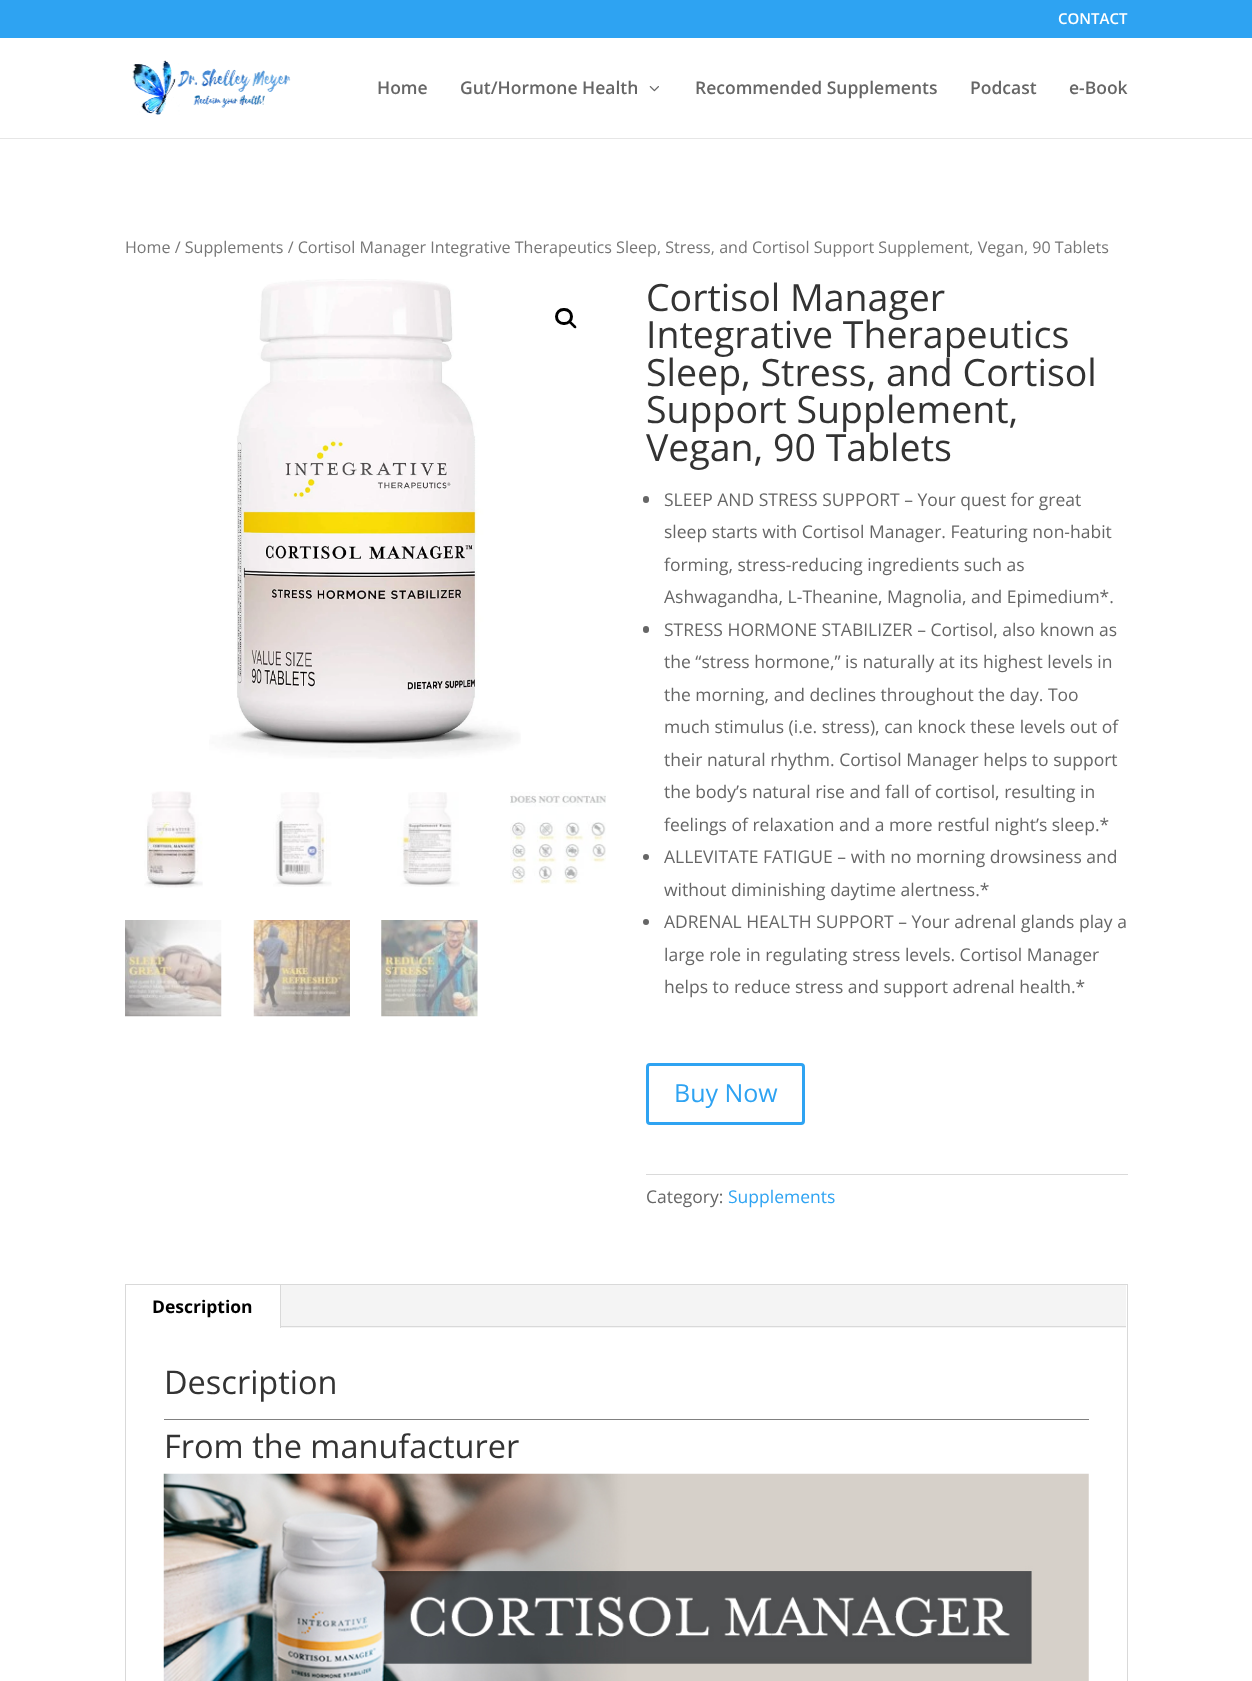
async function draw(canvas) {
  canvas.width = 1252;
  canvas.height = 1681;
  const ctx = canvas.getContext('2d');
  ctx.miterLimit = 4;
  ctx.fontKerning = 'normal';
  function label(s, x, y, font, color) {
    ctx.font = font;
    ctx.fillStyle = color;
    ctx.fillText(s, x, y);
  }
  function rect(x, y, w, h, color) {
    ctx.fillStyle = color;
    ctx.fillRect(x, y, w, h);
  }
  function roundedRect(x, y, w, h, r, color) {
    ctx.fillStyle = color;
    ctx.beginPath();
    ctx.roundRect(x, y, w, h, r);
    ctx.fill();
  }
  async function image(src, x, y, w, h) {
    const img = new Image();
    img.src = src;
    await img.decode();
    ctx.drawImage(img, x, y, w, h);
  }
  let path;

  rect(0, 0, 1252, 1681, '#fff');
  rect(0, 0, 1252, 38, '#2ea3f2');
  label('CONTACT', 1058, 24, '600 15px Open Sans', '#fff');
  ctx.fillStyle = '#e6e6e6';
  path = new Path2D('M0 138V139H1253V39H1252V138Z');
  ctx.fill(path);
  await image('assets/img1.png', 132, 60, 159, 55);
  label('Home', 377, 94, '600 17.5px Open Sans', '#666');
  label('Gut/Hormone Health', 460, 94, '600 17.5px Open Sans', '#666');
  await image('assets/img2.png', 649, 86, 10, 6);
  label('Recommended Supplements', 695, 94, '600 17.5px Open Sans', '#666');
  label('Podcast', 970, 94, '600 17.5px Open Sans', '#666');
  label('e-Book', 1069, 94, '600 17.5px Open Sans', '#666');
  label('Home / Supplements / Cortisol Manager Integrative Therapeutics Sleep, Stress, and Cortisol Support Supplement, Vegan, 90 Tablets', 125, 253, '16.1px Open Sans', '#767676');
  await image('assets/img3.png', 209, 279, 312, 480);
  ctx.beginPath();
  ctx.roundRect(556.5, 309.5, 15, 14, 7);
  ctx.strokeStyle = '#000';
  ctx.lineWidth = 3;
  ctx.stroke();
  ctx.fillStyle = '#000';
  path = new Path2D('M569 321C570.5 319.5 572.5 323 573.5 323.5C574 324.5 577.5 326.5 576 328C574.5 329.5 572.5 326 571.5 325.5C571 324.5 567.5 322.5 569 321Z');
  ctx.fill(path);
  await image('assets/img4.png', 144, 791, 59, 97);
  await image('assets/img5.png', 273, 792, 59, 95);
  await image('assets/img6.png', 397, 792, 63, 95);
  await image('assets/img7.png', 510, 792, 96, 93);
  await image('assets/img8.png', 125, 920, 97, 97);
  await image('assets/img9.png', 253, 920, 97, 97);
  await image('assets/img10.png', 381, 920, 97, 97);
  label('Cortisol Manager', 646, 311, '37.5px Open Sans', '#333');
  label('Integrative Therapeutics', 646, 348, '37.5px Open Sans', '#333');
  label('Sleep, Stress, and Cortisol', 646, 386, '37.5px Open Sans', '#333');
  label('Support Supplement,', 646, 423, '37.5px Open Sans', '#333');
  label('Vegan, 90 Tablets', 646, 461, '37.5px Open Sans', '#333');
  roundedRect(643, 496, 6, 7, 3, '#666');
  label('SLEEP AND STRESS SUPPORT – Your quest for great', 664, 506, '17.5px Open Sans', '#666');
  label('sleep starts with Cortisol Manager. Featuring non-habit', 664, 538, '17.5px Open Sans', '#666');
  label('forming, stress-reducing ingredients such as', 664, 571, '17.5px Open Sans', '#666');
  label('Ashwagandha, L-Theanine, Magnolia, and Epimedium*.', 664, 603, '17.5px Open Sans', '#666');
  roundedRect(643, 626, 6, 7, 3, '#666');
  label('STRESS HORMONE STABILIZER – Cortisol, also known as', 664, 636, '17.5px Open Sans', '#666');
  label('the “stress hormone,” is naturally at its highest levels in', 664, 668, '17.5px Open Sans', '#666');
  label('the morning, and declines throughout the day. Too', 664, 701, '17.5px Open Sans', '#666');
  label('much stimulus (i.e. stress), can knock these levels out of', 664, 733, '17.5px Open Sans', '#666');
  label('their natural rhythm. Cortisol Manager helps to support', 664, 766, '17.5px Open Sans', '#666');
  label('the body’s natural rise and fall of cortisol, resulting in', 664, 798, '17.5px Open Sans', '#666');
  label('feelings of relaxation and a more restful night’s sleep.*', 664, 831, '17.5px Open Sans', '#666');
  ctx.beginPath();
  ctx.arc(646, 857, 3, 0, 2 * Math.PI);
  ctx.fill();
  label('ALLEVITATE FATIGUE – with no morning drowsiness and', 664, 863, '17.5px Open Sans', '#666');
  label('without diminishing daytime alertness.*', 664, 896, '17.5px Open Sans', '#666');
  ctx.beginPath();
  ctx.arc(646, 922, 3, 0, 2 * Math.PI);
  ctx.fill();
  label('ADRENAL HEALTH SUPPORT – Your adrenal glands play a', 664, 928, '17.5px Open Sans', '#666');
  label('large role in regulating stress levels. Cortisol Manager', 664, 961, '17.5px Open Sans', '#666');
  label('helps to reduce stress and support adrenal health.*', 664, 993, '17.5px Open Sans', '#666');
  ctx.beginPath();
  ctx.roundRect(647.5, 1064.5, 156, 59, 2.5);
  ctx.strokeStyle = '#2ea3f2';
  ctx.stroke();
  label('Buy Now', 674, 1102, '25px Open Sans', '#2ea3f2');
  rect(646, 1174, 482, 1, '#dadada');
  label('Category:', 646, 1203, '17.5px Open Sans', '#666');
  label('Supplements', 728, 1203, '17.5px Open Sans', '#2ea3f2');
  ctx.strokeStyle = '#d9d9d9';
  ctx.lineWidth = 1;
  ctx.strokeRect(125.5, 1284.5, 1002, 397);
  rect(281, 1285, 845, 43, '#f4f4f4');
  rect(280, 1285, 1, 43, '#d9d9d9');
  label('Description', 152, 1313, 'bold 17.5px Open Sans', '#000');
  rect(281, 1326, 845, 1, '#d9d9d9');
  label('Description', 164, 1394, '32.5px Open Sans', '#333');
  rect(164, 1419, 925, 1, '#808080');
  label('From the manufacturer', 164, 1458, '32.5px Open Sans', '#333');
  await image('assets/img11.png', 163, 1473, 926, 208);
}

draw(document.querySelector('canvas'));
